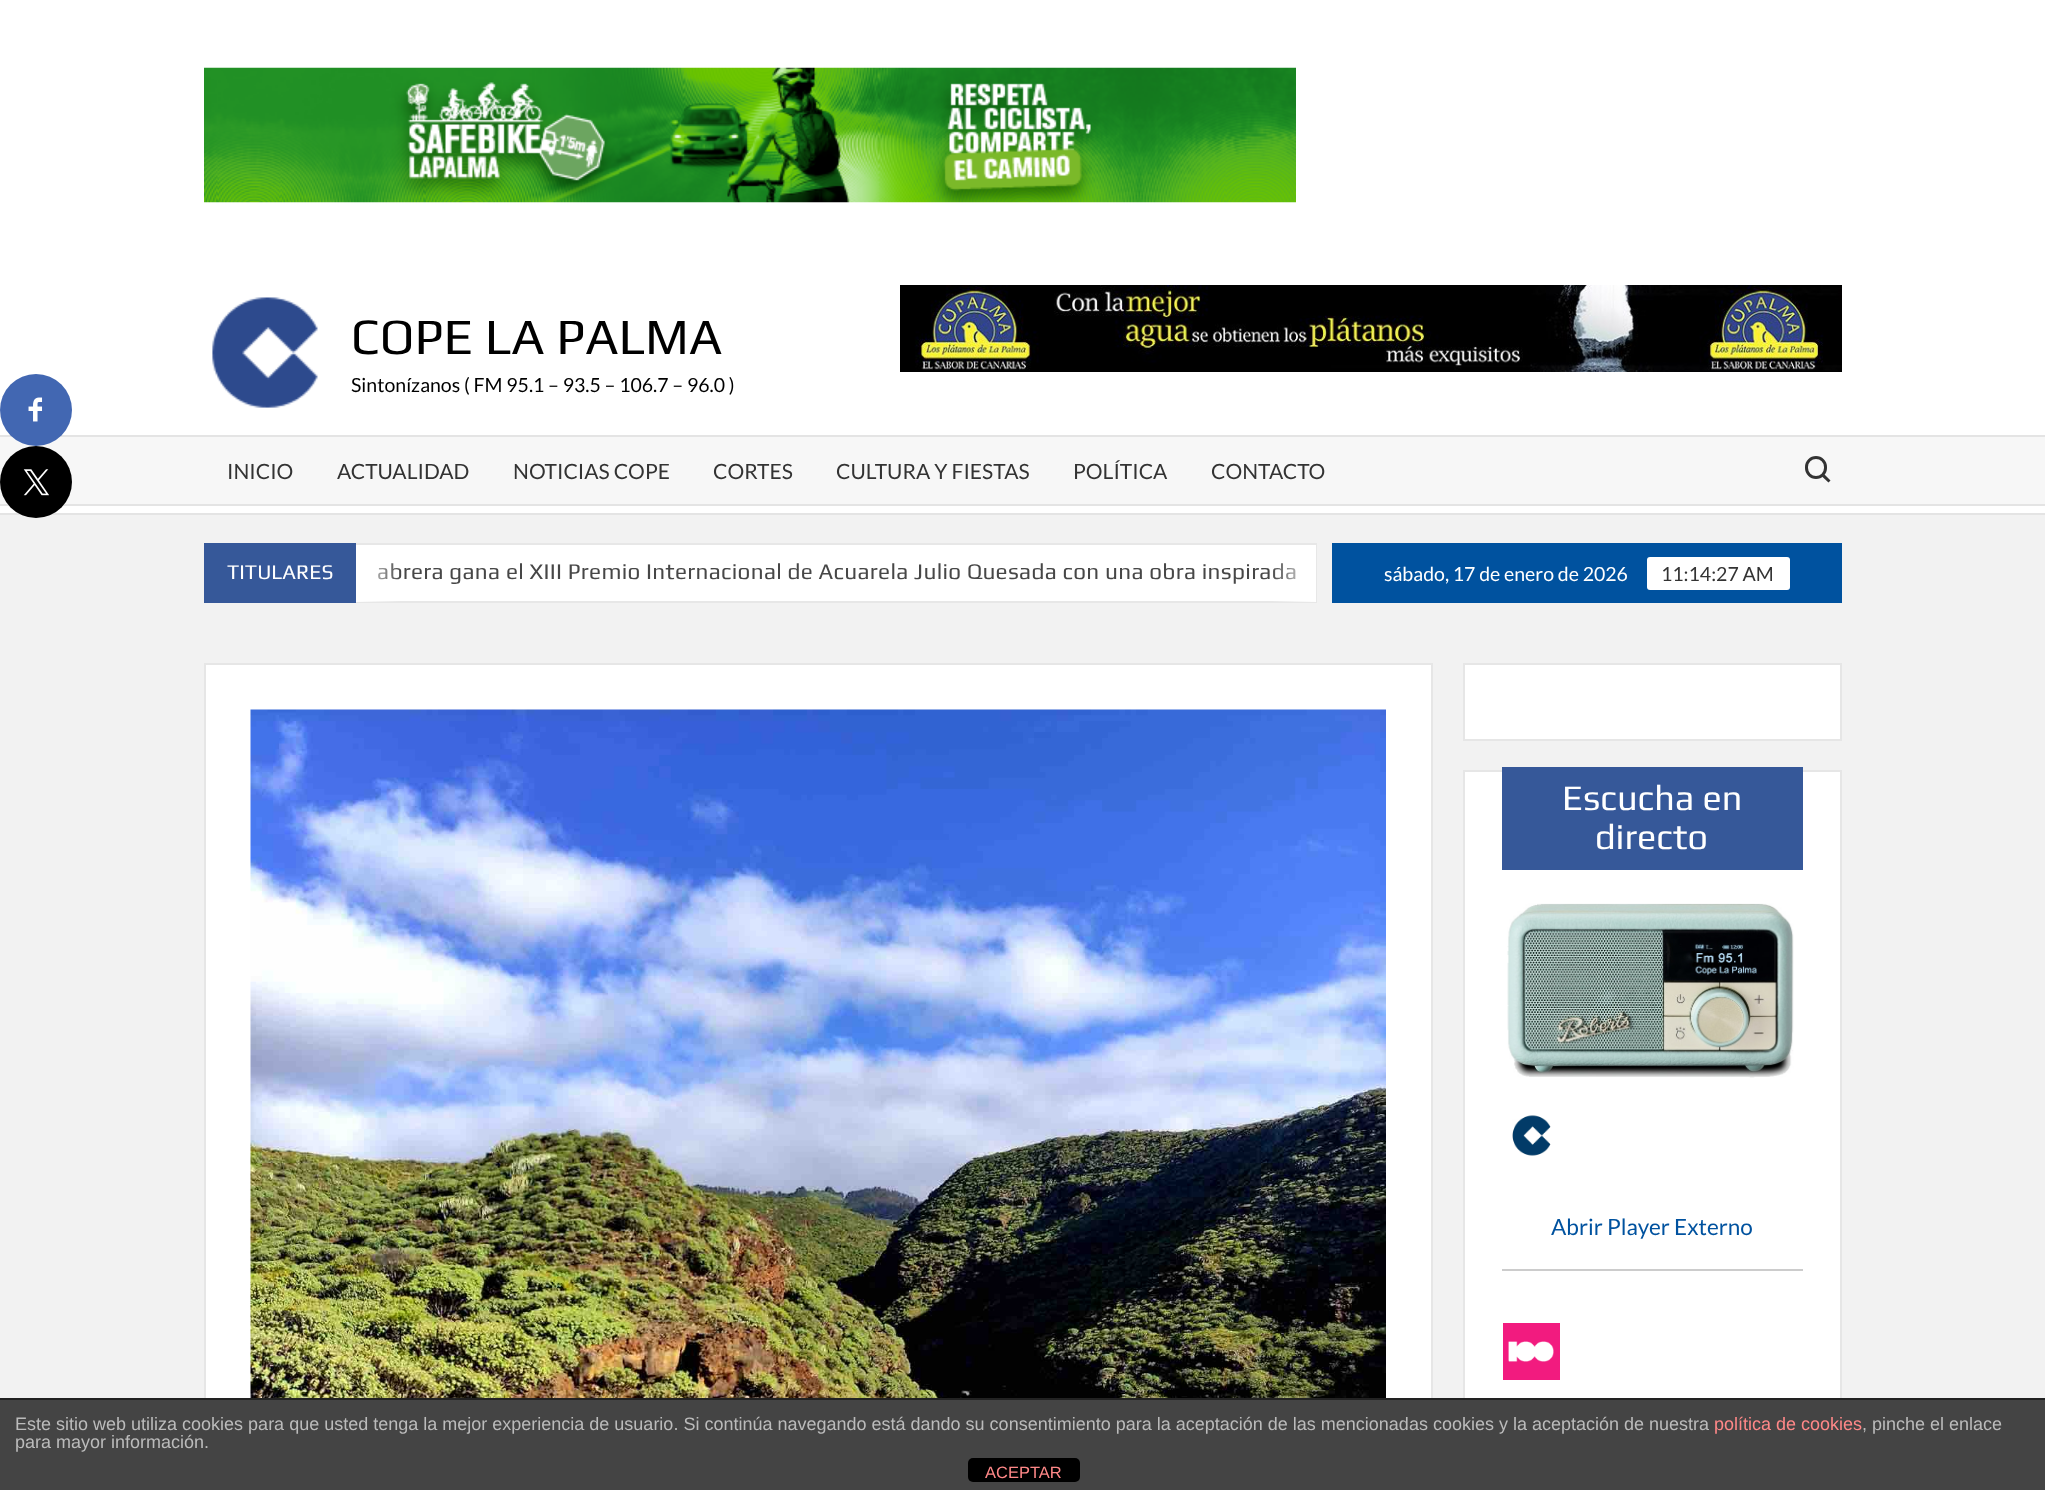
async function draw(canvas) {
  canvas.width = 2045;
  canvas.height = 1490;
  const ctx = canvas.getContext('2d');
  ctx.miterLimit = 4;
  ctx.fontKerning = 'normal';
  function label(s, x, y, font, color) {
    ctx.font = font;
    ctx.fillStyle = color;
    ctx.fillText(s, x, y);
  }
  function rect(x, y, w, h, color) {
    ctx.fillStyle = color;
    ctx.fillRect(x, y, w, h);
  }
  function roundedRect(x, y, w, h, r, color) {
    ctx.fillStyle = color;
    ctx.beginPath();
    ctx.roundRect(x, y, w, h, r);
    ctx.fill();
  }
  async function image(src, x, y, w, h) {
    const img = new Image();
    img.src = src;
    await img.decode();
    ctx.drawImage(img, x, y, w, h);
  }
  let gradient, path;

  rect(0, 0, 2045, 1490, '#f2f2f2');
  rect(0, 0, 2045, 435, '#fff');
  rect(0, 437, 2045, 67, '#f7f7f7');
  rect(0, 435, 2045, 2, '#e4e4e4');
  ctx.fillStyle = '#4267b2';
  ctx.beginPath();
  ctx.arc(36, 410, 36, 0, 2 * Math.PI);
  ctx.fill();
  await image('assets/img1.png', 28, 397, 15, 25);
  rect(0, 513, 2045, 2, '#e4e4e4');
  rect(0, 506, 2045, 7, '#fff');
  rect(0, 504, 2045, 2, '#e4e4e4');
  ctx.fillStyle = '#000';
  ctx.beginPath();
  ctx.arc(36, 482, 36, 0, 2 * Math.PI);
  ctx.fill();
  await image('assets/img2.png', 23, 469, 26, 27);
  await image('assets/img3.png', 204, 67, 1092, 136);
  await image('assets/img4.png', 212, 297, 106, 111);
  label('COPE LA PALMA', 351, 354, '51px Play', '#000');
  label('Sintonízanos ( FM 95.1 – 93.5 – 106.7 – 96.0 )', 351, 392, '19.5px Lato', '#000');
  await image('assets/img5.png', 900, 285, 942, 87);
  label('INICIO', 227, 479, '21px Lato', '#333');
  label('ACTUALIDAD', 337, 479, '21px Lato', '#333');
  label('NOTICIAS COPE', 513, 479, '21px Lato', '#333');
  label('CORTES', 713, 479, '21px Lato', '#333');
  label('CULTURA Y FIESTAS', 836, 479, '21px Lato', '#333');
  label('POLÍTICA', 1073, 479, '21px Lato', '#333');
  label('CONTACTO', 1211, 479, '21px Lato', '#333');
  ctx.beginPath();
  ctx.roundRect(1806.5, 457.5, 19, 20, 9.5);
  ctx.strokeStyle = '#333';
  ctx.lineWidth = 3;
  ctx.stroke();
  path = new Path2D('M1824.5 474.5L1830.5 480.5L1828.5 482.5L1822 476.5Z');
  ctx.fill(path);
  rect(356, 545, 959, 56, '#fff');
  ctx.strokeStyle = '#e7e7e7';
  ctx.lineWidth = 2;
  ctx.strokeRect(205, 544, 1111, 58);
  ctx.letterSpacing = '0.3px';
  label('abrera gana el XIII Premio Internacional de Acuarela Julio Quesada con una obra inspirada', 377, 579, '22.5px Play', '#474747');
  gradient = ctx.createLinearGradient(1271, 573, 1316, 573);
  gradient.addColorStop(0, '#ffffff00');
  gradient.addColorStop(1, '#fff');
  ctx.fillStyle = gradient;
  ctx.fillRect(1273, 545, 43, 57);
  rect(204, 543, 152, 60, '#365899');
  ctx.letterSpacing = '0px';
  label('TITULARES', 227, 579, '21px Play', '#fff');
  gradient = ctx.createLinearGradient(356, 573, 401, 573);
  gradient.addColorStop(0, '#fff');
  gradient.addColorStop(1, '#ffffff00');
  ctx.fillStyle = gradient;
  ctx.fillRect(356, 563, 44, 39);
  rect(1332, 543, 510, 60, '#00529f');
  label('sábado, 17 de enero de 2026', 1384, 581, '19.5px Lato', '#fff');
  roundedRect(1647, 557, 143, 33, 3, '#fff');
  label('11:14:27 AM', 1661, 581, '19.5px Lato', '#333');
  rect(206, 665, 1225, 733, '#fff');
  ctx.strokeStyle = '#e6e6e6';
  ctx.strokeRect(205, 664, 1227, 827);
  await image('assets/img6.png', 250, 709, 1136, 689);
  ctx.beginPath();
  ctx.rect(1464, 664, 377, 76);
  ctx.fill();
  ctx.stroke();
  rect(1465, 772, 375, 626, '#fff');
  ctx.strokeRect(1464, 771, 377, 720);
  rect(1502, 767, 301, 103, '#365899');
  label('Escucha en', 1562, 810, '36px Play', '#fff');
  label('directo', 1595, 849, '36px Play', '#fff');
  await image('assets/img7.png', 1507, 903, 287, 175);
  await image('assets/img8.png', 1512, 1115, 39, 41);
  label('Abrir Player Externo', 1551, 1235, '22.5px Lato', '#00529f');
  rect(1502, 1269, 301, 2, '#ccc');
  await image('assets/img9.png', 1503, 1323, 57, 57);
  rect(0, 1400, 2045, 90, '#444');
  rect(0, 1398, 2045, 2, '#222');
  label('Este sitio web utiliza cookies para que usted tenga la mejor experiencia de usuario. Si continúa navegando está dando su consentimiento para la aceptación de las mencionadas cookies y la aceptación de nuestra', 15, 1430, '18px Liberation Sans', '#bbb');
  label('política de cookies', 1714, 1430, '18px Liberation Sans', '#f88');
  label(', pinche el enlace', 1862, 1430, '18px Liberation Sans', '#bbb');
  label('para mayor información.', 15, 1448, '18px Liberation Sans', '#bbb');
  roundedRect(968, 1458, 112, 24, 5, '#000');
  label('ACEPTAR', 985, 1478, '16.5px Liberation Sans', '#f88');
}

draw(document.querySelector('canvas'));
